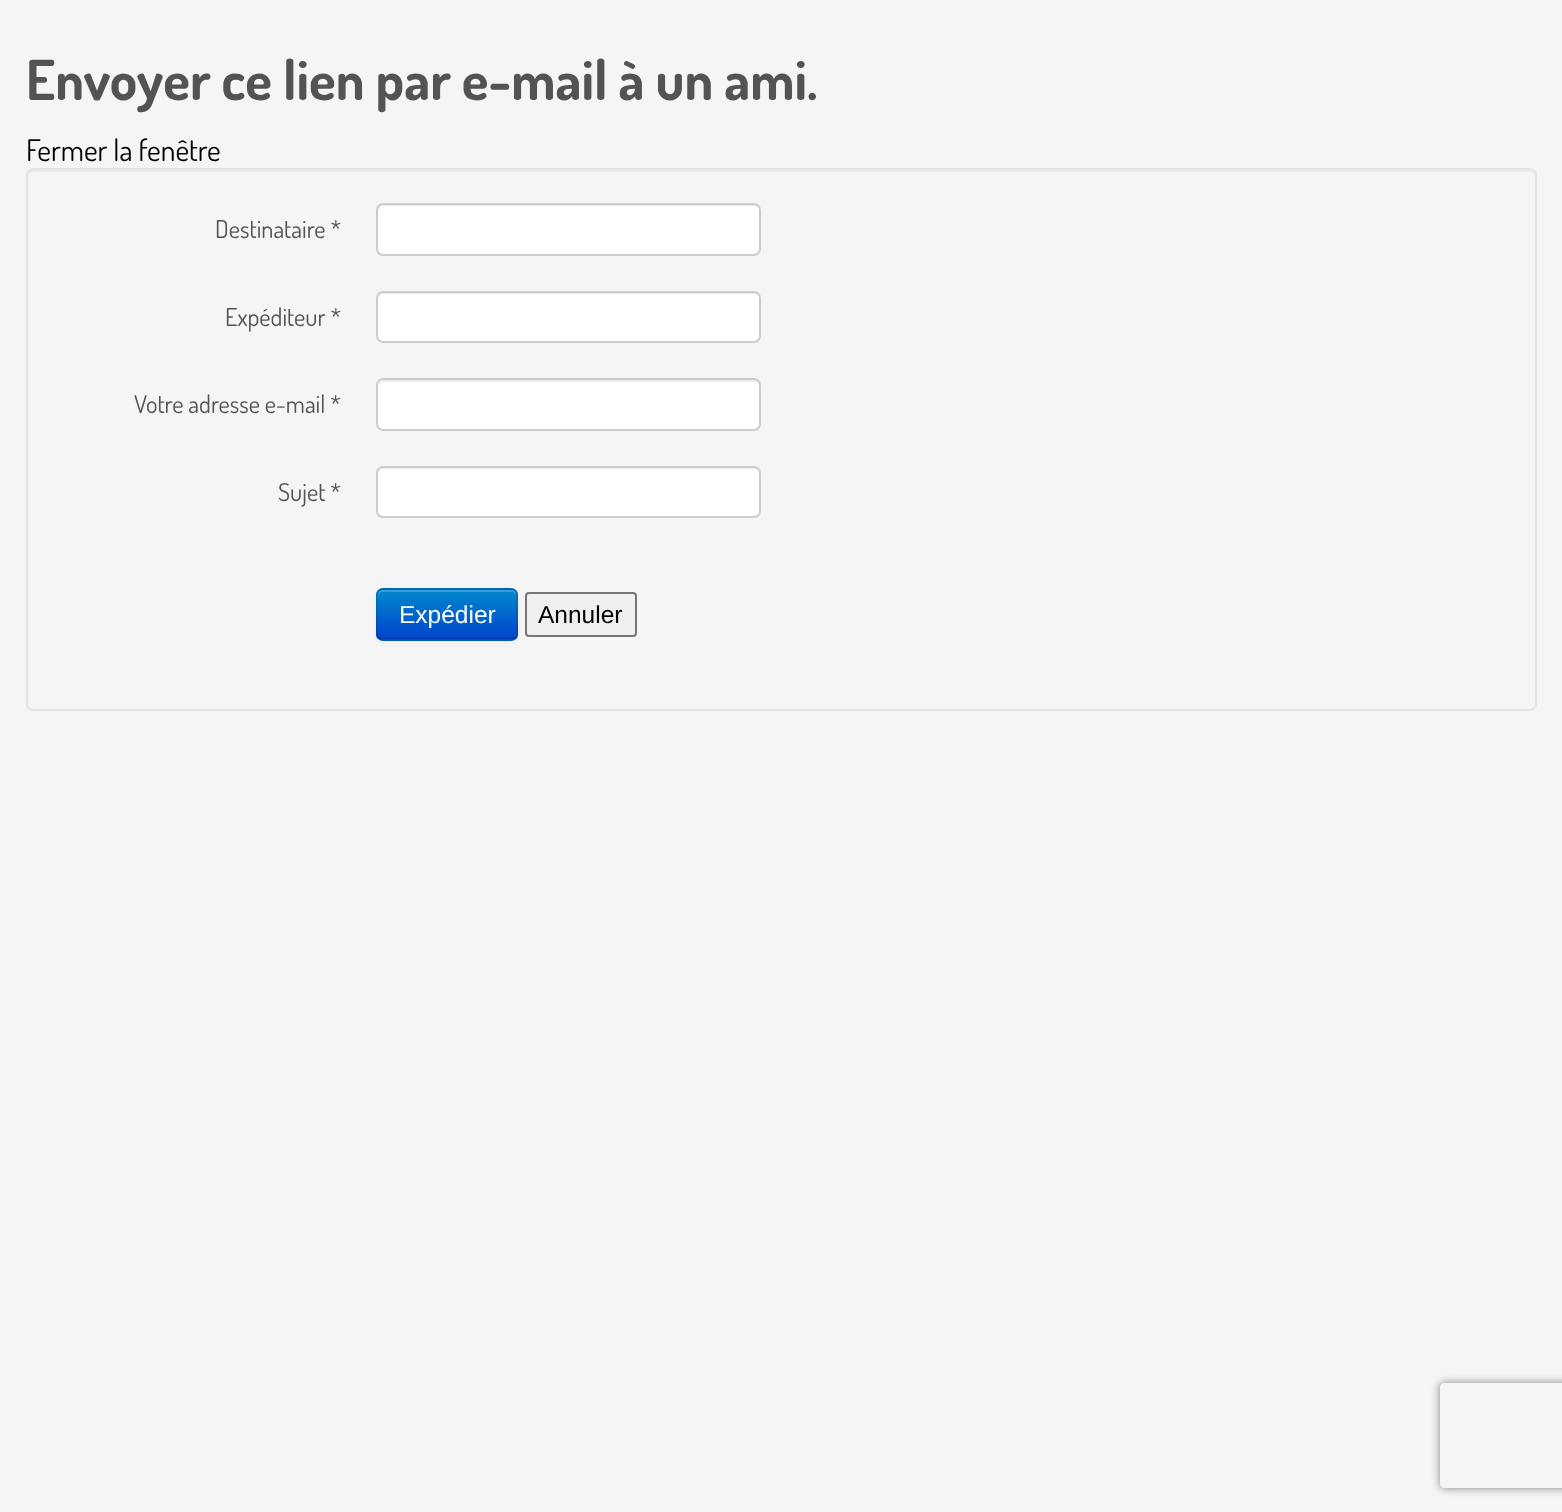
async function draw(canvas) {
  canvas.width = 1562;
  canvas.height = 1512;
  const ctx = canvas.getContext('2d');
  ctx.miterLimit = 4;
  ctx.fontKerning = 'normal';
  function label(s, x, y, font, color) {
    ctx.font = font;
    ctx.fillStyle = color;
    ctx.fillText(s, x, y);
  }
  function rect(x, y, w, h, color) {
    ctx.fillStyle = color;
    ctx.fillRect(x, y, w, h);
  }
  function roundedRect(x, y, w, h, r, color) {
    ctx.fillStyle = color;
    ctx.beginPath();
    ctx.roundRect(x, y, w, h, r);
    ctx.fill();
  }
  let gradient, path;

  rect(0, 0, 1562, 1512, '#f5f5f5');
  label('Envoyer ce lien par e-mail à un ami.', 26, 100, 'bold 55.1px Dosis', '#535353');
  label('Fermer la fenêtre', 26, 161, '29.75px Dosis', '#000');
  ctx.fillStyle = '#e9e9e9';
  path = new Path2D('M33 172H1530C1532 172 1535 174 1535 177C1535 174 1534 170 1530 170H33C29 170 28 174 28 177C28 174 30 172 33 172Z');
  ctx.fill(path);
  ctx.beginPath();
  ctx.roundRect(27, 169, 1509, 541, 6);
  ctx.strokeStyle = '#e3e3e3';
  ctx.lineWidth = 2;
  ctx.stroke();
  label('Destinataire *', 215, 238, '24.5px Dosis', '#535353');
  roundedRect(376, 203, 385, 53, 7, '#fff');
  ctx.fillStyle = '#ececec';
  path = new Path2D('M383 206H754C757 206 760 209 760 212V210C760 207 758 205 755 205H383C380 205 378 207 378 210V212C378 209 380 206 383 206Z');
  ctx.fill(path);
  ctx.beginPath();
  ctx.roundRect(377, 204, 383, 51, 6);
  ctx.strokeStyle = '#ccc';
  ctx.stroke();
  label('Expéditeur *', 225, 326, '24.5px Dosis', '#535353');
  roundedRect(376, 291, 385, 52, 7, '#fff');
  ctx.fillStyle = '#ececec';
  path = new Path2D('M383 294H754C757 294 760 296 760 299V297C760 294 758 292 755 292H383C380 292 378 294 378 297V299C378 296 380 294 383 294Z');
  ctx.fill(path);
  ctx.beginPath();
  ctx.roundRect(377, 292, 383, 50, 6);
  ctx.stroke();
  label('Votre adresse e-mail *', 134, 413, '24.5px Dosis', '#535353');
  roundedRect(376, 378, 385, 53, 7, '#fff');
  ctx.fillStyle = '#ececec';
  path = new Path2D('M383 382H754C757 382 760 384 760 387V385C760 382 758 380 755 380H383C380 380 378 382 378 385V387C378 384 380 382 383 382Z');
  ctx.fill(path);
  ctx.beginPath();
  ctx.roundRect(377, 379, 383, 51, 6);
  ctx.stroke();
  label('Sujet *', 278, 501, '24.5px Dosis', '#535353');
  roundedRect(376, 466, 385, 52, 7, '#fff');
  ctx.fillStyle = '#ececec';
  path = new Path2D('M383 469H754C757 469 760 471 760 474V472C760 469 758 467 755 467H383C380 467 378 469 378 472V474C378 471 380 469 383 469Z');
  ctx.fill(path);
  ctx.beginPath();
  ctx.roundRect(377, 467, 383, 50, 6);
  ctx.stroke();
  ctx.fillStyle = '#0000000d';
  ctx.filter = 'blur(2px)';
  ctx.beginPath();
  ctx.roundRect(376, 590, 142, 52, 7);
  ctx.fill();
  ctx.filter = 'none';
  roundedRect(376, 588, 142, 53, 7, '#006dcc');
  ctx.save();
  ctx.beginPath();
  ctx.roundRect(376, 588, 142, 53, 7);
  ctx.clip();
  gradient = ctx.createLinearGradient(447, 590, 447, 639);
  gradient.addColorStop(0, '#08c');
  gradient.addColorStop(1, '#04c');
  ctx.fillStyle = gradient;
  ctx.fillRect(376, 590, 142, 49);
  ctx.restore();
  ctx.fillStyle = '#ffffff33';
  path = new Path2D('M383 592H511C514 592 516 594 516 597V595C516 592 514 590 511 590H383C380 590 378 592 378 595V597C378 594 380 592 383 592Z');
  ctx.fill(path);
  path = new Path2D('M515.5 638C514 639 512.5 639.5 511 639.5H383C381.5 639.5 380 639 379 638');
  ctx.strokeStyle = '#00000040';
  ctx.lineWidth = 1.8;
  ctx.stroke(path);
  path = new Path2D('M379 638C376 635 377 630.5 377 627V614C377 584.5 373 589 404.5 589H489.5C521 589 517 584.5 517 614V627C517 630.5 518 635 515.5 638');
  ctx.strokeStyle = '#0000001a';
  ctx.stroke(path);
  label('Expédier', 399, 623, '24.5px Liberation Sans', '#fff');
  ctx.fillStyle = '#efefef';
  ctx.beginPath();
  ctx.roundRect(526, 593, 110, 43, 3);
  ctx.fill();
  ctx.strokeStyle = '#767676';
  ctx.lineWidth = 2;
  ctx.stroke();
  label('Annuler', 538, 623, '24.5px Liberation Sans', '#000');
  ctx.save();
  path = new Path2D('M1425 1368H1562V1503H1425ZM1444 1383H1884C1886 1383 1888 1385 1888 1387V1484C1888 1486 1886 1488 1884 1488H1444C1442 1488 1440 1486 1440 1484V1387C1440 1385 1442 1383 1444 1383Z');
  ctx.clip(path, 'evenodd');
  ctx.fillStyle = '#808080';
  ctx.filter = 'blur(4.5px)';
  ctx.beginPath();
  ctx.roundRect(1440, 1383, 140, 105, 4);
  ctx.fill();
  ctx.filter = 'none';
  ctx.restore();
}

draw(document.querySelector('canvas'));
